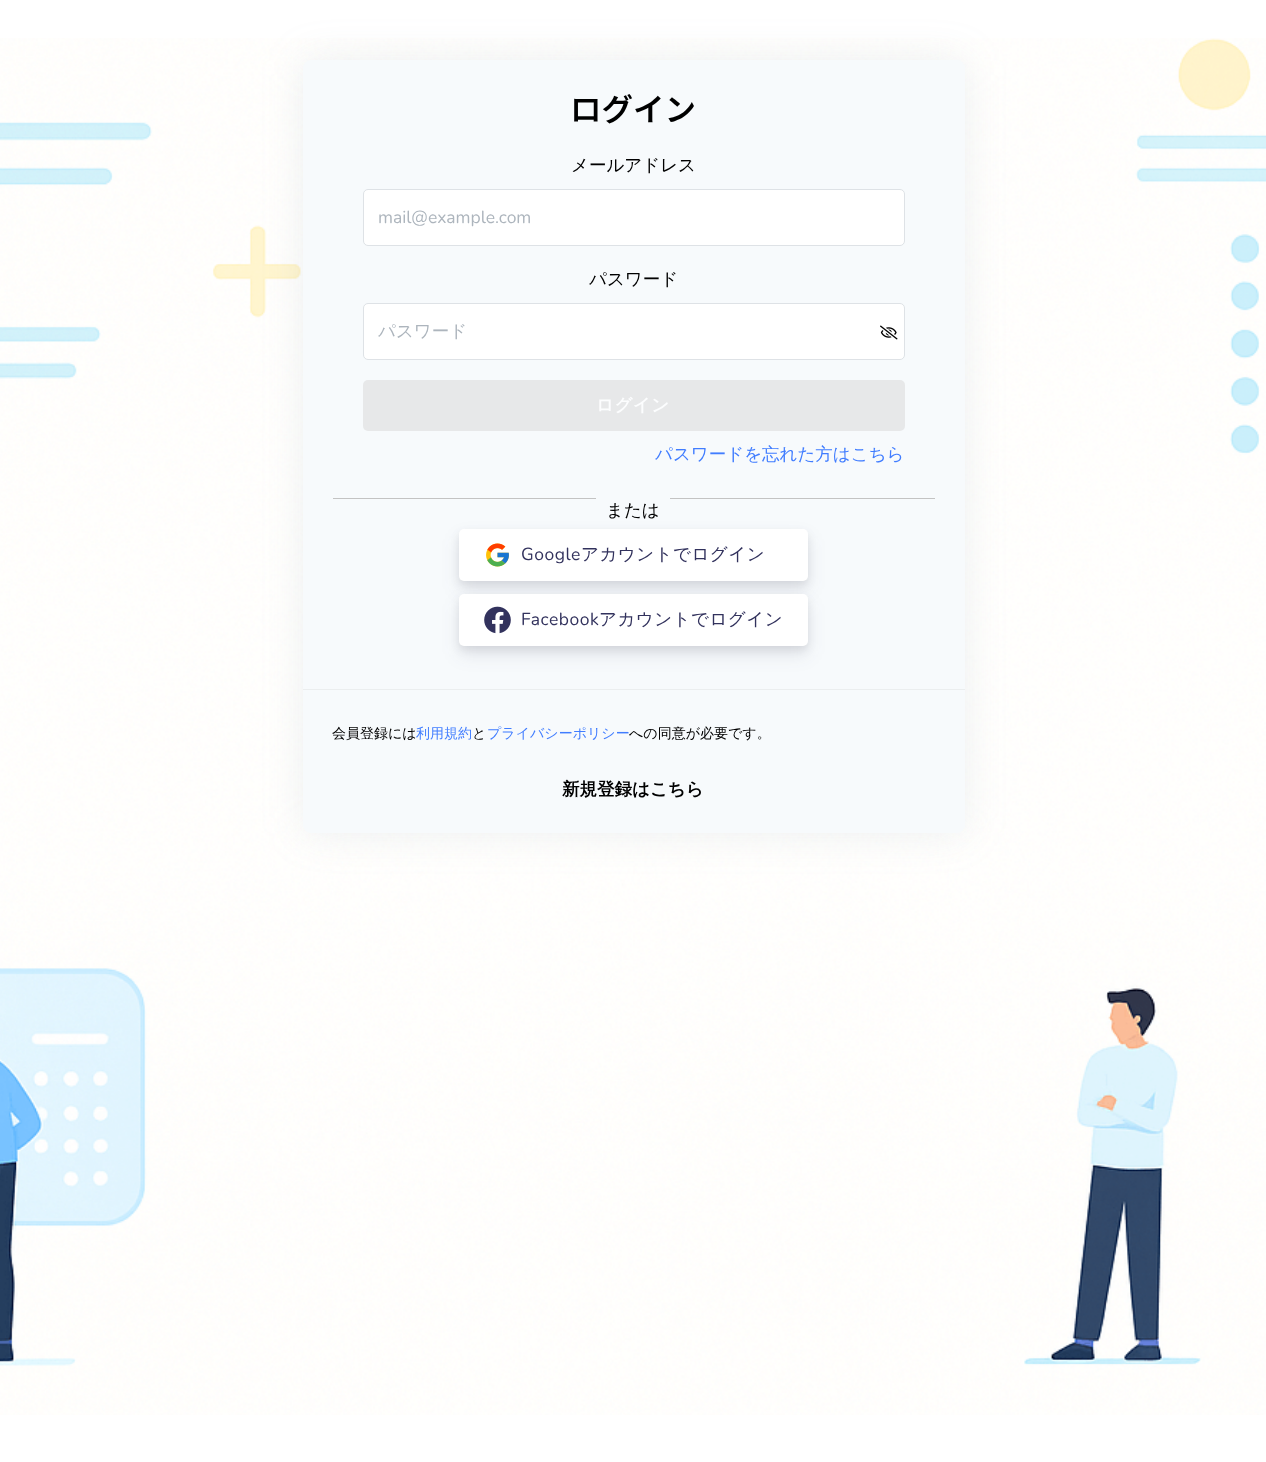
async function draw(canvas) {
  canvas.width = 1266;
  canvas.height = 1462;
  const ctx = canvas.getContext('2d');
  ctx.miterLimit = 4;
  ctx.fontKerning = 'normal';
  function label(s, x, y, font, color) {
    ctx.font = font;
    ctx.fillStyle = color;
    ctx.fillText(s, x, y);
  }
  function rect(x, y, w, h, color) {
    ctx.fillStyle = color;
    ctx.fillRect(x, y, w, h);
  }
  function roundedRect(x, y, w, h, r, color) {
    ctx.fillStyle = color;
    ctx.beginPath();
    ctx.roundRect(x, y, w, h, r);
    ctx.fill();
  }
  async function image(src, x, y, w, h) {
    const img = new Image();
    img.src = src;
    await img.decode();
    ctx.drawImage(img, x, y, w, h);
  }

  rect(0, 0, 1266, 1462, '#fff');
  await image('assets/img1.png', 0, 38, 1266, 1377);
  ctx.fillStyle = '#8898aa26';
  ctx.filter = 'blur(20px)';
  ctx.beginPath();
  ctx.roundRect(303, 60, 662, 773, 8);
  ctx.fill();
  ctx.filter = 'none';
  roundedRect(303, 60, 662, 773, 8, '#f7fafc');
  rect(303, 689, 662, 1, '#ebeeef');
  label('ログイン', 570, 121, '600 31.5px Noto Sans JP', '#000');
  label('メールアドレス', 571, 171, '500 17.5px WenQuanYi Zen Hei', '#000');
  ctx.fillStyle = '#fff';
  ctx.beginPath();
  ctx.roundRect(363.5, 189.5, 541, 56, 4.5);
  ctx.fill();
  ctx.strokeStyle = '#dee2e6';
  ctx.stroke();
  label('mail@example.com', 378, 223, '17.5px Nunito', '#adb5bd');
  label('パスワード', 589, 285, '500 17.5px WenQuanYi Zen Hei', '#000');
  ctx.fillStyle = '#fff';
  ctx.beginPath();
  ctx.roundRect(363.5, 303.5, 541, 56, 4.5);
  ctx.fill();
  ctx.stroke();
  label('パスワード', 378, 337, '500 17.5px WenQuanYi Zen Hei', '#adb5bd');
  await image('assets/img2.png', 880, 325, 18, 15);
  roundedRect(363, 380, 542, 51, 5, '#e7e8e9');
  ctx.letterSpacing = '0.5px';
  label('ログイン', 596, 411, 'bold 17.5px WenQuanYi Zen Hei', '#fcfdfe');
  ctx.letterSpacing = '0px';
  label('パスワードを忘れた方はこちら', 655, 460, '500 17.5px WenQuanYi Zen Hei', '#417dff');
  rect(333, 498, 602, 1, '#c3c3c3');
  rect(596, 498, 74, 1, '#f7fafc');
  label('または', 606, 516, '500 17.5px WenQuanYi Zen Hei', '#000');
  ctx.fillStyle = '#00000014';
  ctx.filter = 'blur(4px)';
  ctx.beginPath();
  ctx.roundRect(459, 533, 349, 52, 5);
  ctx.fill();
  ctx.filter = 'none';
  ctx.fillStyle = '#32325d1a';
  ctx.filter = 'blur(9px)';
  ctx.beginPath();
  ctx.roundRect(459, 538, 349, 52, 5);
  ctx.fill();
  ctx.filter = 'none';
  roundedRect(459, 529, 349, 52, 5, '#fff');
  await image('assets/img3.png', 486, 543, 23, 24);
  ctx.letterSpacing = '0.5px';
  label('Google', 521, 560, '17.5px Nunito', '#32325d');
  label('アカウントでログイン', 581, 560, '500 17.5px WenQuanYi Zen Hei', '#32325d');
  ctx.fillStyle = '#00000014';
  ctx.filter = 'blur(4px)';
  ctx.beginPath();
  ctx.roundRect(459, 598, 349, 52, 5);
  ctx.fill();
  ctx.filter = 'none';
  ctx.fillStyle = '#32325d1a';
  ctx.filter = 'blur(9px)';
  ctx.beginPath();
  ctx.roundRect(459, 603, 349, 52, 5);
  ctx.fill();
  ctx.filter = 'none';
  roundedRect(459, 594, 349, 52, 5, '#fff');
  await image('assets/img4.png', 484, 606, 27, 28);
  label('Facebook', 521, 625, '17.5px Nunito', '#32325d');
  label('アカウントでログイン', 599, 625, '500 17.5px WenQuanYi Zen Hei', '#32325d');
  ctx.letterSpacing = '0px';
  label('会員登録には', 332, 738, '500 14px WenQuanYi Zen Hei', '#000');
  label('利用規約', 416, 738, '500 14px WenQuanYi Zen Hei', '#417dff');
  label('と', 472, 738, '500 14px WenQuanYi Zen Hei', '#000');
  label('プライバシーポリシー', 487, 738, '500 14px WenQuanYi Zen Hei', '#417dff');
  label('への同意が必要です。', 629, 738, '500 14px WenQuanYi Zen Hei', '#000');
  label('新規登録はこちら', 562, 795, 'bold 17.5px WenQuanYi Zen Hei', '#000');
}

draw(document.querySelector('canvas'));
